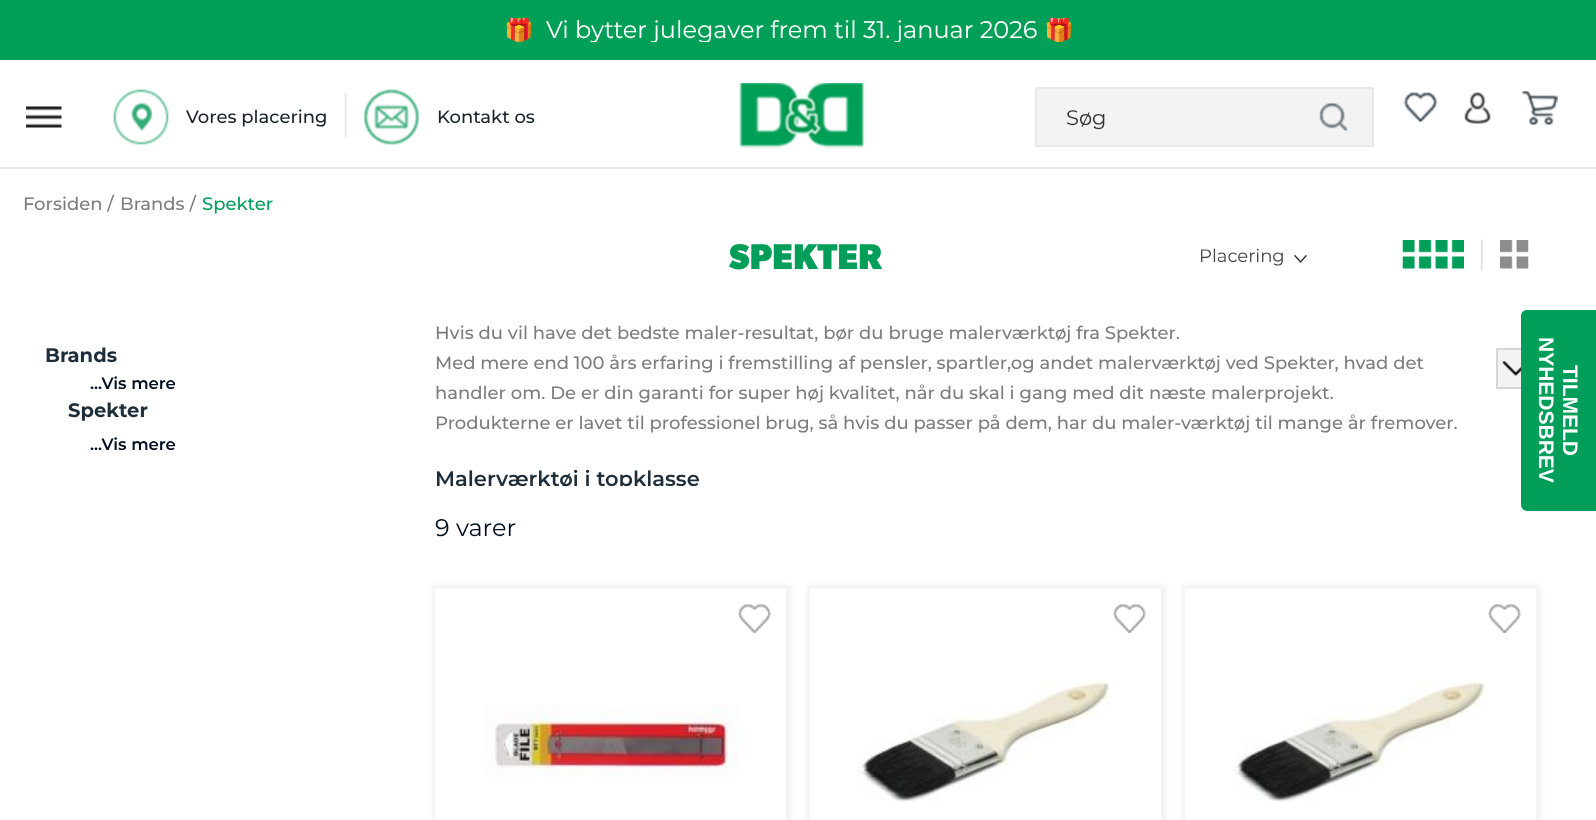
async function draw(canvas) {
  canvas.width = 1596;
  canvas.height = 820;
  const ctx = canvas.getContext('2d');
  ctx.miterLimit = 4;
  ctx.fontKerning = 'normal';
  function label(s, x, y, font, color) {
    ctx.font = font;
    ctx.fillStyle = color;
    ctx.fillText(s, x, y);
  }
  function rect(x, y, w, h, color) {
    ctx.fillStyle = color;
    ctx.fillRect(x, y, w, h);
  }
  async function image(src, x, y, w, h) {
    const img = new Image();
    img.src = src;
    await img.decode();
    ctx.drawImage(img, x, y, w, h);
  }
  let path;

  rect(0, 0, 1596, 820, '#fff');
  rect(0, 0, 1596, 60, '#009f57');
  ctx.save();
  ctx.beginPath();
  ctx.rect(504, 18, 588, 24);
  ctx.clip();
  label('🎁', 504, 38, '24px Noto Color Emoji', '#fff');
  label('Vi bytter julegaver frem til 31. januar 2026', 546, 38, '24px Montserrat', '#fff');
  label('🎁', 1044, 38, '24px Noto Color Emoji', '#fff');
  ctx.restore();
  rect(0, 167, 1596, 2, '#ebebeb');
  await image('assets/img1.png', 26, 106, 36, 22);
  await image('assets/img2.png', 739, 83, 126, 65);
  await image('assets/img3.png', 113, 89, 56, 56);
  label('Vores placering', 186, 123, '500 18px Montserrat', '#18232c');
  await image('assets/img4.png', 344, 92, 3, 47);
  await image('assets/img5.png', 364, 89, 55, 56);
  label('Kontakt os', 437, 123, '500 18px Montserrat', '#18232c');
  ctx.fillStyle = '#f3f3f3';
  ctx.beginPath();
  ctx.roundRect(1036, 88, 337, 58, 0.5);
  ctx.fill();
  ctx.strokeStyle = '#e8e8e8';
  ctx.lineWidth = 2;
  ctx.stroke();
  label('Søg', 1066, 125, '21px Montserrat', '#333');
  await image('assets/img6.png', 1319, 103, 29, 28);
  await image('assets/img7.png', 1403, 92, 35, 30);
  await image('assets/img8.png', 1464, 92, 27, 32);
  await image('assets/img9.png', 1522, 91, 36, 34);
  label('Forsiden /', 23, 210, '500 18px Montserrat', '#7d7d7d');
  label('Brands /', 120, 210, '500 18px Montserrat', '#7d7d7d');
  label('Spekter', 202, 210, '500 18px Montserrat', '#009e58');
  label('Brands', 45, 362, 'bold 19.5px Montserrat', '#1d2d3a');
  label('...Vis mere', 90, 389, '600 16.5px Montserrat', '#000d1f');
  label('Spekter', 68, 417, 'bold 19.5px Montserrat', '#1d2d3a');
  label('...Vis mere', 90, 450, '600 16.5px Montserrat', '#000d1f');
  await image('assets/img10.png', 1294, 255, 13, 8);
  label('Placering', 1199, 262, '18px Montserrat', '#454545');
  await image('assets/img11.png', 1402, 240, 62, 29);
  label('|', 1477, 264, '33px Montserrat', '#e6e6e6');
  await image('assets/img12.png', 1500, 240, 29, 29);
  label('9 varer', 435, 536, '24px Montserrat', '#000d1f');
  ctx.save();
  path = new Path2D('M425 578H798V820H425ZM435 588H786V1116H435Z');
  ctx.clip(path, 'evenodd');
  ctx.fillStyle = '#0000000d';
  ctx.filter = 'blur(2px)';
  ctx.beginPath();
  ctx.rect(432, 585, 359, 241);
  ctx.fill();
  ctx.filter = 'none';
  ctx.restore();
  await image('assets/img13.png', 738, 604, 33, 29);
  await image('assets/img14.png', 483, 705, 255, 72);
  ctx.save();
  path = new Path2D('M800 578H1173V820H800ZM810 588H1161V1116H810Z');
  ctx.clip(path, 'evenodd');
  ctx.fillStyle = '#0000000d';
  ctx.filter = 'blur(2px)';
  ctx.beginPath();
  ctx.rect(807, 585, 359, 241);
  ctx.fill();
  ctx.filter = 'none';
  ctx.restore();
  await image('assets/img13.png', 1113, 604, 33, 29);
  await image('assets/img15.png', 858, 680, 253, 122);
  ctx.save();
  path = new Path2D('M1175 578H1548V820H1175ZM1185 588H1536V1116H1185Z');
  ctx.clip(path, 'evenodd');
  ctx.fillStyle = '#0000000d';
  ctx.filter = 'blur(2px)';
  ctx.beginPath();
  ctx.rect(1182, 585, 359, 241);
  ctx.fill();
  ctx.filter = 'none';
  ctx.restore();
  await image('assets/img13.png', 1488, 604, 33, 29);
  await image('assets/img16.png', 1233, 680, 253, 122);
  label('SPEKTER', 729, 269, 'bold 36px "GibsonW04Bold"', '#009e58');
  label('Hvis du vil have det bedste maler-resultat, bør du bruge malerværktøj fra Spekter.', 435, 339, '500 18px Montserrat', '#7d7d7d');
  label('Med mere end 100 års erfaring i fremstilling af pensler, spartler,og andet malerværktøj ved Spekter, hvad det', 435, 369, '500 18px Montserrat', '#7d7d7d');
  label('handler om. De er din garanti for super høj kvalitet, når du skal i gang med dit næste malerprojekt.', 435, 399, '500 18px Montserrat', '#7d7d7d');
  rect(1498, 350, 23, 37, '#f3f3f3');
  ctx.strokeStyle = '#d5d5d5';
  ctx.strokeRect(1497, 349, 38, 39);
  await image('assets/img17.png', 1502, 361, 19, 15);
  label('Produkterne er lavet til professionel brug, så hvis du passer på dem, har du maler-værktøj til mange år fremover.', 435, 429, '500 18px Montserrat', '#7d7d7d');
  ctx.save();
  ctx.beginPath();
  ctx.rect(435, 318, 1101, 168);
  ctx.clip();
  label('Malerværktøj i topklasse', 435, 486, '600 21px Montserrat', '#1d2d3a');
  ctx.restore();
  ctx.fillStyle = '#009e58';
  path = new Path2D('M1596 310V511H1527C1524 511 1521 508 1521 505V316C1521 312 1524 310 1527 310Z');
  ctx.fill(path);
  ctx.font = 'bold 21px Liberation Sans';
  ctx.fillStyle = '#fff';
  ctx.save();
  ctx.translate(1539, 337);
  ctx.rotate(90 * Math.PI / 180);
  ctx.fillText('NYHEDSBREV', 0, 0);
  ctx.restore();
  ctx.save();
  ctx.translate(1563, 365);
  ctx.rotate(90 * Math.PI / 180);
  ctx.fillText('TILMELD', 0, 0);
  ctx.restore();
}

draw(document.querySelector('canvas'));
